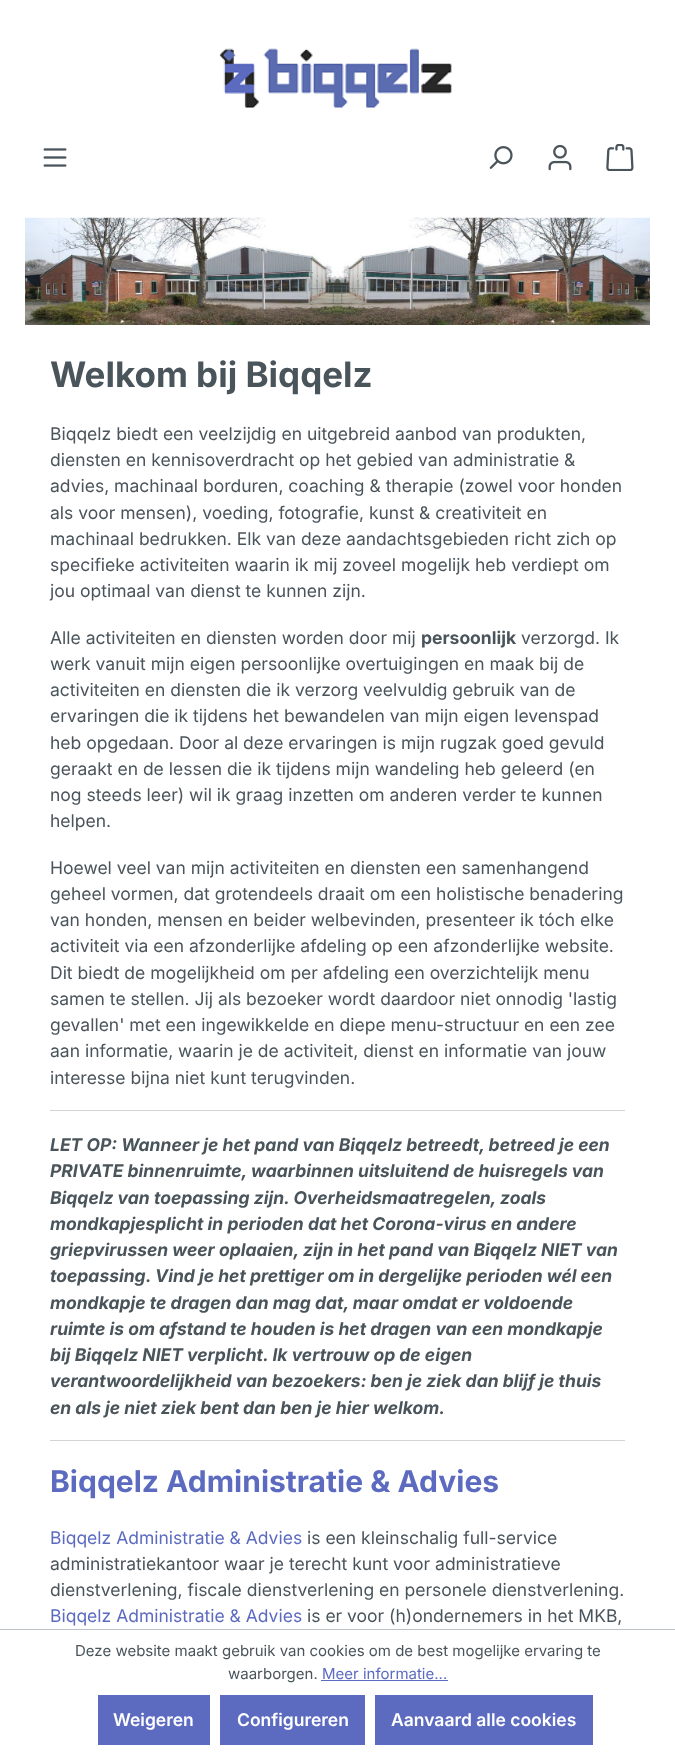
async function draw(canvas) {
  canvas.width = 675;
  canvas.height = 1755;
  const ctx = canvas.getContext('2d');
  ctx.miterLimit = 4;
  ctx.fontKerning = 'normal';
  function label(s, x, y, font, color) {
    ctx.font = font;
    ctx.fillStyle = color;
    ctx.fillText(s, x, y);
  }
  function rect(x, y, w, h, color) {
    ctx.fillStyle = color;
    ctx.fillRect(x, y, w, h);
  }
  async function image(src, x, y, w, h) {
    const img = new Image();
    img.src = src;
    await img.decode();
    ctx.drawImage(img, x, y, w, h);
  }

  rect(0, 0, 675, 1755, '#fff');
  await image('assets/img1.png', 219, 48, 233, 60);
  await image('assets/img2.png', 43, 148, 24, 19);
  await image('assets/img3.png', 489, 146, 24, 23);
  await image('assets/img4.png', 548, 144, 24, 27);
  await image('assets/img5.png', 606, 144, 28, 27);
  await image('assets/img6.png', 25, 217, 625, 108);
  label('Welkom bij Biqqelz', 50, 387, 'bold 35px Inter', '#4a545b');
  label('Biqqelz biedt een veelzijdig en uitgebreid aanbod van produkten,', 50, 440, '17.5px Inter', '#4a545b');
  label('diensten en kennisoverdracht op het gebied van administratie &', 50, 466, '17.5px Inter', '#4a545b');
  label('advies, machinaal borduren, coaching & therapie (zowel voor honden', 50, 492, '17.5px Inter', '#4a545b');
  label('als voor mensen), voeding, fotografie, kunst & creativiteit en', 50, 519, '17.5px Inter', '#4a545b');
  label('machinaal bedrukken. Elk van deze aandachtsgebieden richt zich op', 50, 545, '17.5px Inter', '#4a545b');
  label('specifieke activiteiten waarin ik mij zoveel mogelijk heb verdiept om', 50, 571, '17.5px Inter', '#4a545b');
  label('jou optimaal van dienst te kunnen zijn.', 50, 597, '17.5px Inter', '#4a545b');
  label('Alle activiteiten en diensten worden door mij', 50, 644, '17.5px Inter', '#4a545b');
  label('persoonlijk', 421, 644, 'bold 17.5px Inter', '#4a545b');
  label('verzorgd. Ik', 521, 644, '17.5px Inter', '#4a545b');
  label('werk vanuit mijn eigen persoonlijke overtuigingen en maak bij de', 50, 670, '17.5px Inter', '#4a545b');
  label('activiteiten en diensten die ik verzorg veelvuldig gebruik van de', 50, 696, '17.5px Inter', '#4a545b');
  label('ervaringen die ik tijdens het bewandelen van mijn eigen levenspad', 50, 722, '17.5px Inter', '#4a545b');
  label('heb opgedaan. Door al deze ervaringen is mijn rugzak goed gevuld', 50, 749, '17.5px Inter', '#4a545b');
  label('geraakt en de lessen die ik tijdens mijn wandeling heb geleerd (en', 50, 775, '17.5px Inter', '#4a545b');
  label('nog steeds leer) wil ik graag inzetten om anderen verder te kunnen', 50, 801, '17.5px Inter', '#4a545b');
  label('helpen.', 50, 827, '17.5px Inter', '#4a545b');
  label('Hoewel veel van mijn activiteiten en diensten een samenhangend', 50, 874, '17.5px Inter', '#4a545b');
  label('geheel vormen, dat grotendeels draait om een holistische benadering', 50, 900, '17.5px Inter', '#4a545b');
  label('van honden, mensen en beider welbevinden, presenteer ik tóch elke', 50, 926, '17.5px Inter', '#4a545b');
  label('activiteit via een afzonderlijke afdeling op een afzonderlijke website.', 50, 952, '17.5px Inter', '#4a545b');
  label('Dit biedt de mogelijkheid om per afdeling een overzichtelijk menu', 50, 979, '17.5px Inter', '#4a545b');
  label('samen te stellen. Jij als bezoeker wordt daardoor niet onnodig \'lastig', 50, 1005, '17.5px Inter', '#4a545b');
  label('gevallen\' met een ingewikkelde en diepe menu-structuur en een zee', 50, 1031, '17.5px Inter', '#4a545b');
  label('aan informatie, waarin je de activiteit, dienst en informatie van jouw', 50, 1057, '17.5px Inter', '#4a545b');
  label('interesse bijna niet kunt terugvinden.', 50, 1084, '17.5px Inter', '#4a545b');
  rect(50, 1110, 575, 1, '#d2d4d6');
  label('LET OP: Wanneer je het pand van Biqqelz betreedt, betreed je een', 50, 1151, 'italic bold 17.5px Inter', '#4a545b');
  label('PRIVATE binnenruimte, waarbinnen uitsluitend de huisregels van', 50, 1177, 'italic bold 17.5px Inter', '#4a545b');
  label('Biqqelz van toepassing zijn. Overheidsmaatregelen, zoals', 50, 1204, 'italic bold 17.5px Inter', '#4a545b');
  label('mondkapjesplicht in perioden dat het Corona-virus en andere', 50, 1230, 'italic bold 17.5px Inter', '#4a545b');
  label('griepvirussen weer oplaaien, zijn in het pand van Biqqelz NIET van', 50, 1256, 'italic bold 17.5px Inter', '#4a545b');
  label('toepassing. Vind je het prettiger om in dergelijke perioden wél een', 50, 1282, 'italic bold 17.5px Inter', '#4a545b');
  label('mondkapje te dragen dan mag dat, maar omdat er voldoende', 50, 1309, 'italic bold 17.5px Inter', '#4a545b');
  label('ruimte is om afstand te houden is het dragen van een mondkapje', 50, 1335, 'italic bold 17.5px Inter', '#4a545b');
  label('bij Biqqelz NIET verplicht. Ik vertrouw op de eigen', 50, 1361, 'italic bold 17.5px Inter', '#4a545b');
  label('verantwoordelijkheid van bezoekers: ben je ziek dan blijf je thuis', 50, 1387, 'italic bold 17.5px Inter', '#4a545b');
  label('en als je niet ziek bent dan ben je hier welkom.', 50, 1414, 'italic bold 17.5px Inter', '#4a545b');
  rect(50, 1440, 575, 1, '#d2d4d6');
  label('Biqqelz Administratie & Advies', 50, 1492, 'bold 30px Inter', '#5c6bc0');
  label('Biqqelz Administratie & Advies', 50, 1544, '17.5px Inter', '#5c6bc0');
  label('is een kleinschalig full-service', 307, 1544, '17.5px Inter', '#4a545b');
  label('administratiekantoor waar je terecht kunt voor administratieve', 50, 1570, '17.5px Inter', '#4a545b');
  label('dienstverlening, fiscale dienstverlening en personele dienstverlening.', 50, 1596, '17.5px Inter', '#4a545b');
  label('Biqqelz Administratie & Advies', 50, 1622, '17.5px Inter', '#5c6bc0');
  label('is er voor (h)ondernemers in het MKB,', 307, 1622, '17.5px Inter', '#4a545b');
  rect(0, 1629, 675, 1, '#bcc1c7');
  label('Deze website maakt gebruik van cookies om de best mogelijke ervaring te', 75, 1656, '15px Inter', '#4a545b');
  label('waarborgen.', 228, 1679, '15px Inter', '#4a545b');
  label('Meer informatie...', 322, 1679, '15px Inter', '#5c6bc0');
  rect(321, 1680, 127, 1, '#5c6bc0');
  rect(98, 1695, 112, 50, '#5c6bc0');
  label('Weigeren', 113, 1726, '600 17.5px Inter', '#fff');
  rect(220, 1695, 145, 50, '#5c6bc0');
  label('Configureren', 237, 1726, '600 17.5px Inter', '#fff');
  rect(375, 1695, 218, 50, '#5c6bc0');
  label('Aanvaard alle cookies', 391, 1726, '600 17.5px Inter', '#fff');
}

draw(document.querySelector('canvas'));
